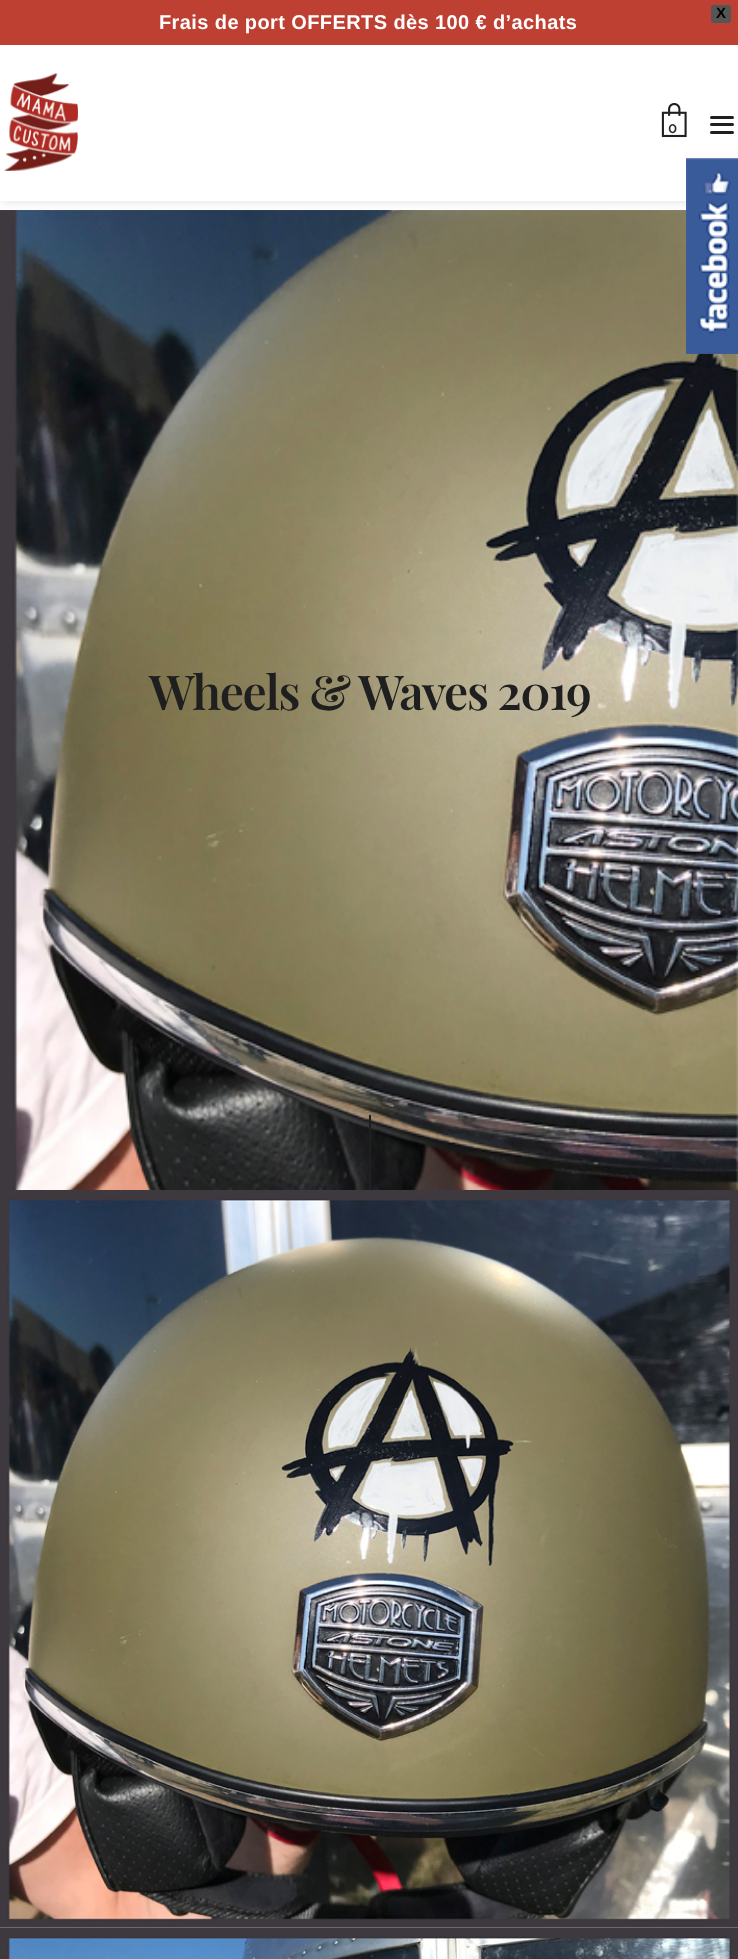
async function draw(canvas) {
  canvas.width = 738;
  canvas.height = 1959;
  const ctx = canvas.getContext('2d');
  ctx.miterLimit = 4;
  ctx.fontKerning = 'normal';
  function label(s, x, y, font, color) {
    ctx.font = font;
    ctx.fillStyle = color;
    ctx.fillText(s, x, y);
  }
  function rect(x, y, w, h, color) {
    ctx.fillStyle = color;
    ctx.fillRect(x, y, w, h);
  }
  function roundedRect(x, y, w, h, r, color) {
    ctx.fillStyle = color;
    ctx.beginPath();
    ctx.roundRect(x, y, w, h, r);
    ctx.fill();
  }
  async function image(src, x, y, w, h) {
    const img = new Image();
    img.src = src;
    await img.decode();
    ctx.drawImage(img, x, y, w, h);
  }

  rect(0, 0, 738, 1959, '#fff');
  await image('assets/img4.png', 0, 1189, 738, 739);
  await image('assets/img3.png', 0, 210, 738, 980);
  ctx.save();
  ctx.beginPath();
  ctx.rect(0, 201, 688, 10);
  ctx.clip();
  ctx.fillStyle = '#e6e6e6';
  ctx.filter = 'blur(4px)';
  ctx.beginPath();
  ctx.rect(2, 45, 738, 158);
  ctx.fill();
  ctx.filter = 'none';
  ctx.restore();
  rect(0, 0, 738, 45, '#be4032');
  ctx.fillStyle = '#555';
  ctx.beginPath();
  ctx.roundRect(712, 6, 18, 16, 2);
  ctx.fill();
  ctx.strokeStyle = '#555';
  ctx.lineWidth = 2;
  ctx.stroke();
  label('X', 716, 18, 'bold 15px Liberation Sans', '#000');
  ctx.letterSpacing = '0.4px';
  label('Frais de port OFFERTS dès 100 € d’achats', 159, 29, 'bold 20px Liberation Sans', '#fff');
  await image('assets/img1.png', 4, 73, 74, 98);
  await image('assets/img2.png', 661, 103, 26, 35);
  ctx.letterSpacing = '0px';
  label('0', 668, 133, '600 15px Raleway', '#2b2b2b');
  roundedRect(710, 116, 24, 3, 1.5, '#1f1f1f');
  roundedRect(710, 123, 24, 3, 1.5, '#1f1f1f');
  roundedRect(710, 131, 24, 3, 1.5, '#1f1f1f');
  ctx.letterSpacing = '-1.4px';
  label('Wheels & Waves 2019', 149, 710, '600 48px Playfair Display', '#1f1f1f');
  rect(369, 1115, 2, 75, '#1f1f1f');
  await image('assets/img5.png', 0, 1927, 738, 32);
  await image('assets/img6.png', 686, 158, 52, 196);
}

draw(document.querySelector('canvas'));
